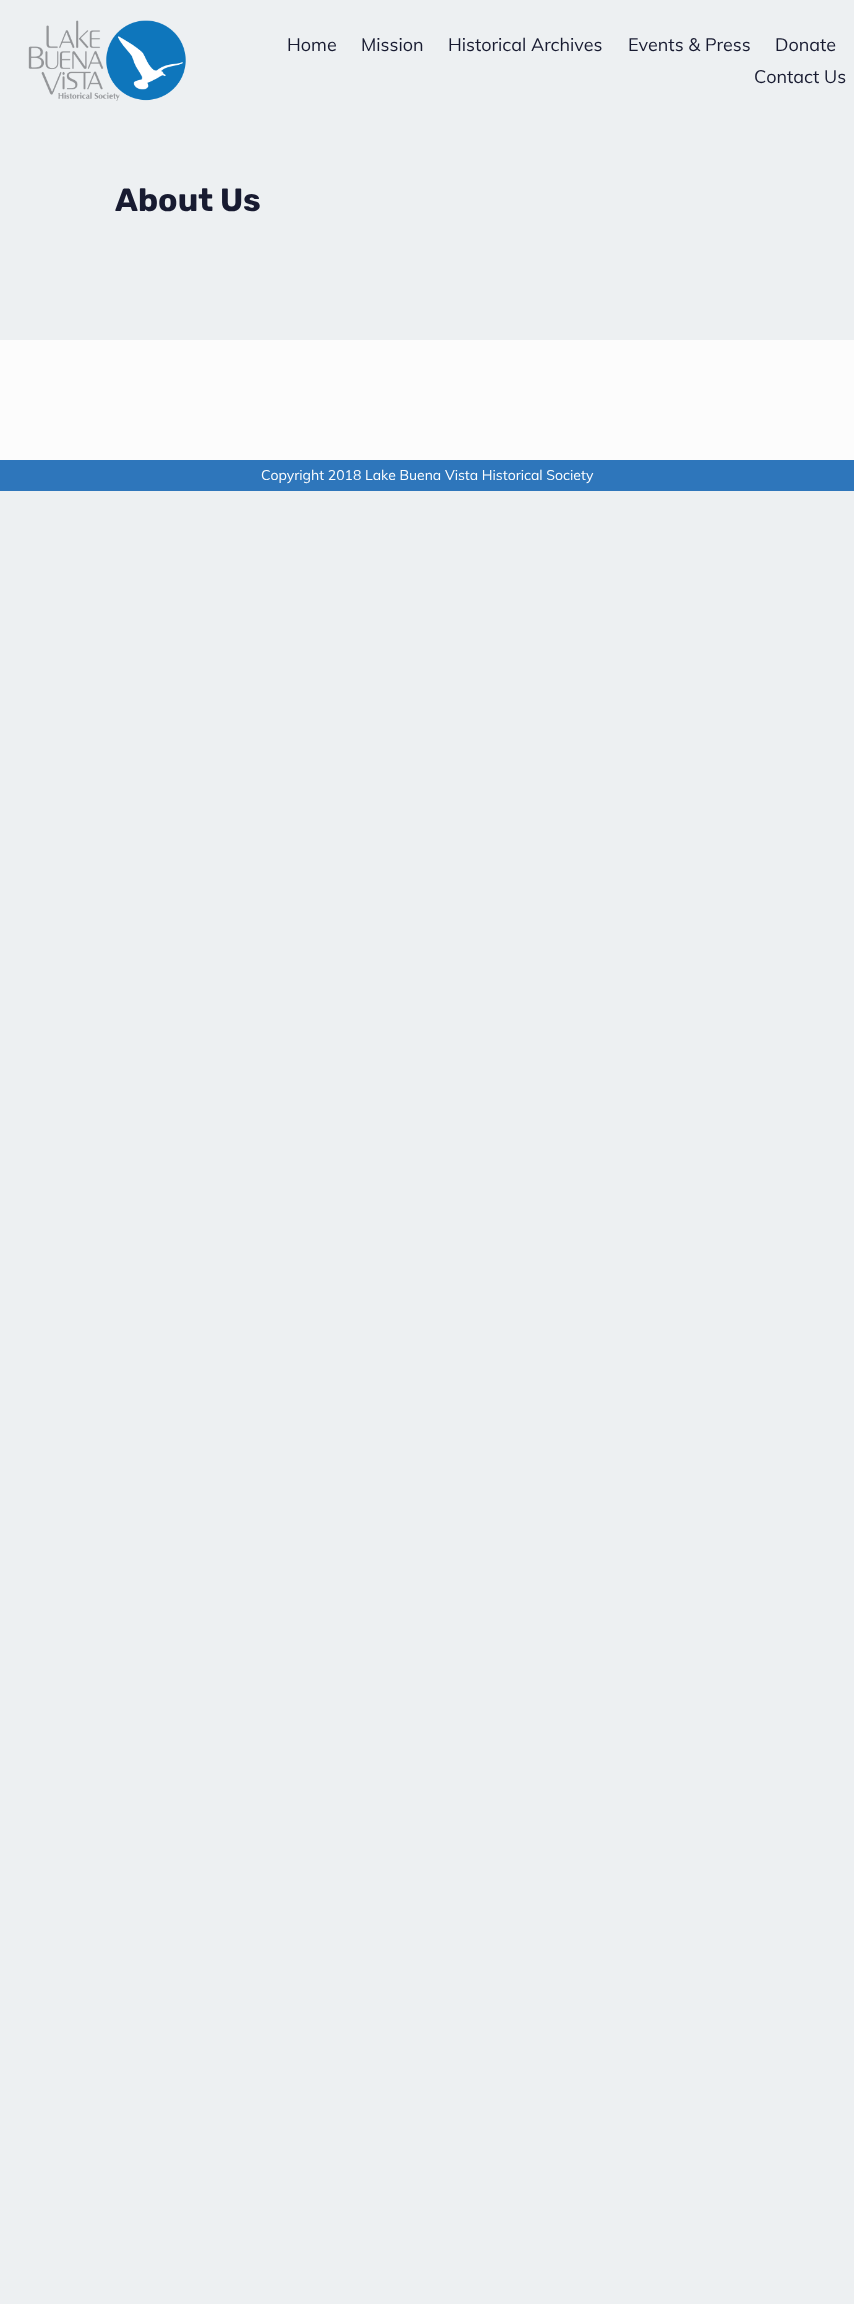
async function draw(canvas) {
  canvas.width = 854;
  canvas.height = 2304;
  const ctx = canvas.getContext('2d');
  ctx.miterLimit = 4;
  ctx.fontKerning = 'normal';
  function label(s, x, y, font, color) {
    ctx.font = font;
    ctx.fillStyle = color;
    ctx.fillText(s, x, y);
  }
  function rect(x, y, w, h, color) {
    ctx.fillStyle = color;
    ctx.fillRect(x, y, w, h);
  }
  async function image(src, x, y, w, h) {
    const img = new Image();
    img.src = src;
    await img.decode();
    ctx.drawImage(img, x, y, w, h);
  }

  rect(0, 0, 854, 2304, '#edf0f2');
  await image('assets/img1.png', 28, 20, 158, 81);
  label('Home', 287, 51, '18px Muli', '#181b31');
  label('Mission', 361, 51, '18px Muli', '#181b31');
  label('Historical Archives', 448, 51, '18px Muli', '#181b31');
  label('Events & Press', 628, 51, '18px Muli', '#181b31');
  label('Donate', 775, 51, '18px Muli', '#181b31');
  label('Contact Us', 754, 83, '18px Muli', '#181b31');
  label('About Us', 115, 211, 'bold 32px Rubik', '#181b31');
  rect(0, 340, 854, 120, '#fcfcfc');
  rect(0, 460, 854, 31, '#2e76bb');
  label('Copyright 2018 Lake Buena Vista Historical Society', 261, 480, '14px Muli', '#fff');
}

draw(document.querySelector('canvas'));
